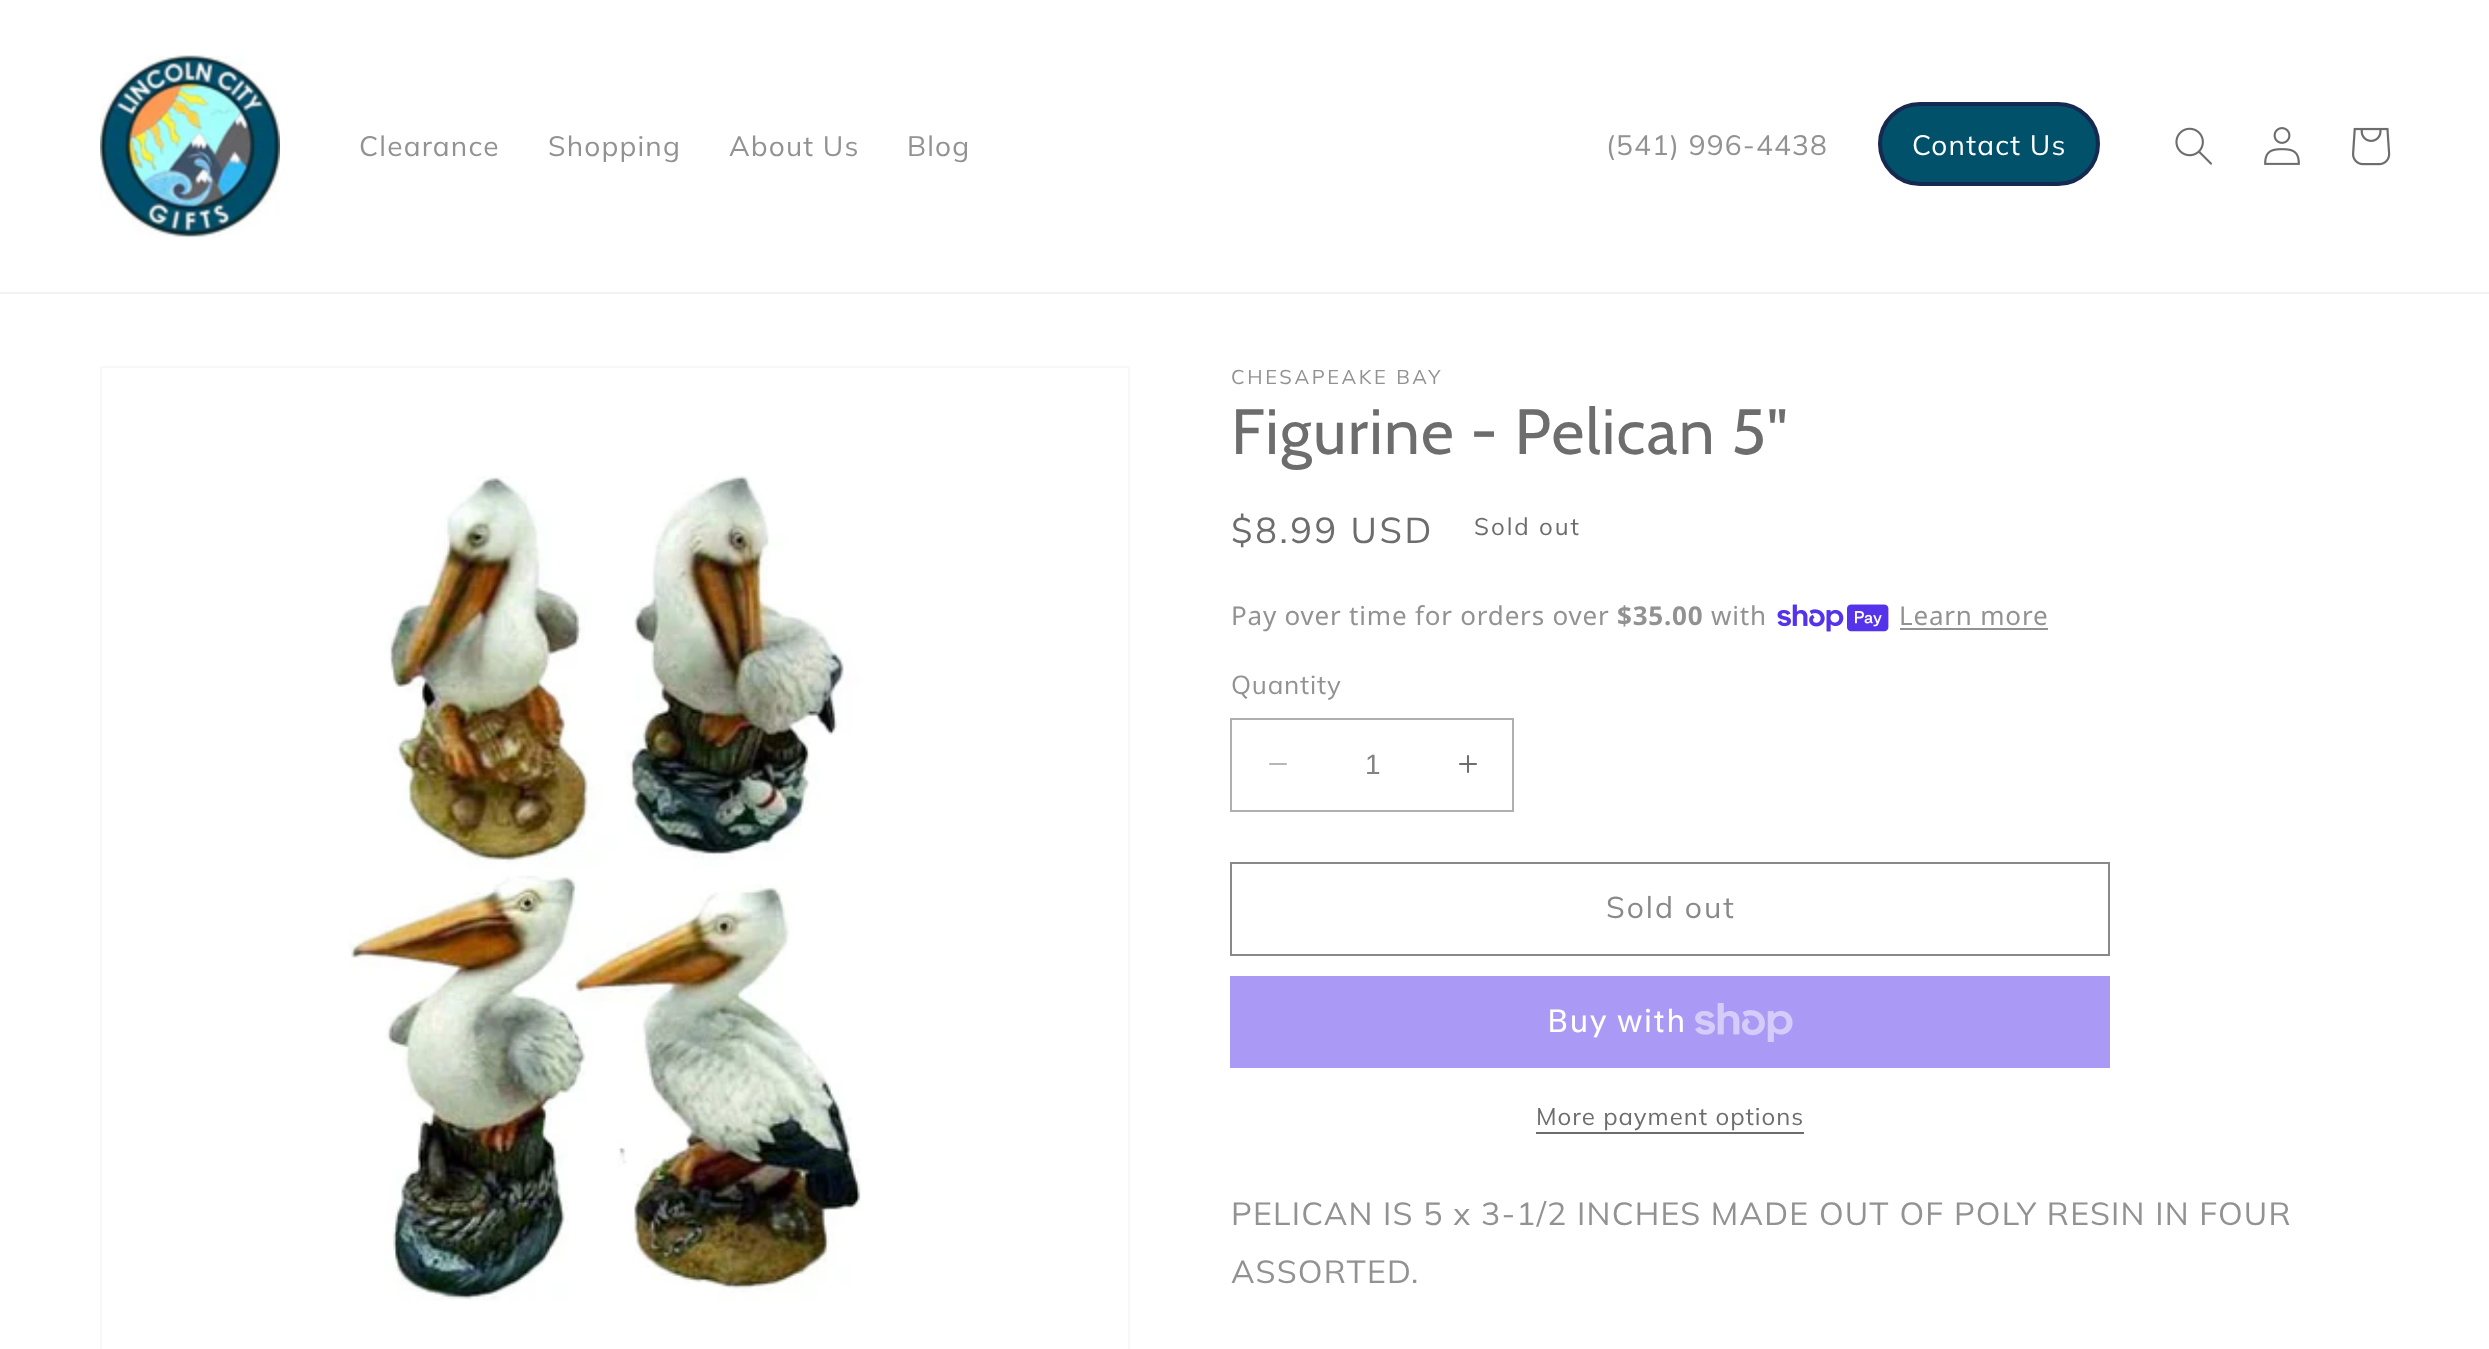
async function draw(canvas) {
  canvas.width = 2489;
  canvas.height = 1349;
  const ctx = canvas.getContext('2d');
  ctx.miterLimit = 4;
  ctx.fontKerning = 'normal';
  function label(s, x, y, font, color) {
    ctx.font = font;
    ctx.fillStyle = color;
    ctx.fillText(s, x, y);
  }
  function rect(x, y, w, h, color) {
    ctx.fillStyle = color;
    ctx.fillRect(x, y, w, h);
  }
  async function image(src, x, y, w, h) {
    const img = new Image();
    img.src = src;
    await img.decode();
    ctx.drawImage(img, x, y, w, h);
  }

  rect(0, 0, 2489, 1349, '#fff');
  rect(0, 292, 2489, 2, '#f3f3f3');
  await image('assets/img1.png', 100, 55, 180, 183);
  ctx.letterSpacing = '1.2px';
  label('Clearance', 359, 156, '28px Muli', '#929292');
  label('Shopping', 548, 156, '28px Muli', '#929292');
  label('About Us', 729, 156, '28px Muli', '#929292');
  label('Blog', 907, 156, '28px Muli', '#929292');
  label('(541) 996-4438', 1606, 155, '28px Muli', '#929292');
  ctx.fillStyle = '#005169';
  ctx.beginPath();
  ctx.roundRect(1880, 104, 218, 80, 40);
  ctx.fill();
  ctx.strokeStyle = '#162950';
  ctx.lineWidth = 4;
  ctx.stroke();
  label('Contact Us', 1912, 155, '28px Muli', '#fff');
  await image('assets/img2.png', 2175, 127, 37, 38);
  await image('assets/img3.png', 2264, 127, 36, 38);
  await image('assets/img4.png', 2352, 127, 39, 39);
  ctx.strokeStyle = '#f8f8f8';
  ctx.lineWidth = 2;
  ctx.strokeRect(101, 367, 1028, 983);
  await image('assets/img5.png', 349, 475, 512, 826);
  ctx.letterSpacing = '2.6px';
  label('CHESAPEAKE BAY', 1231, 384, '20px Muli', '#929292');
  ctx.letterSpacing = '1.2px';
  label('Figurine - Pelican 5"', 1231, 454, '64px Cabin', '#6d6d6d');
  ctx.letterSpacing = '2.6px';
  label('$8.99 USD', 1231, 543, '36px Muli', '#6d6d6d');
  ctx.letterSpacing = '2px';
  label('Sold out', 1474, 535, '24px Muli', '#6d6d6d');
  ctx.letterSpacing = '0.8px';
  label('Pay over time for orders over', 1231, 625, '26px Noto Sans', '#929292');
  label('$35.00', 1617, 625, 'bold 26px Noto Sans', '#929292');
  label('with', 1711, 625, '26px Noto Sans', '#929292');
  await image('assets/img6.png', 1777, 604, 112, 28);
  label('Learn more', 1899, 625, '26px Noto Sans', '#929292');
  rect(1900, 628, 148, 2, '#929292');
  label('Quantity', 1231, 694, '26px Muli', '#929292');
  await image('assets/img7.png', 1269, 763, 18, 2);
  await image('assets/img8.png', 1459, 755, 18, 18);
  ctx.strokeStyle = '#afafaf';
  ctx.strokeRect(1231, 719, 282, 92);
  ctx.letterSpacing = '0px';
  label('1', 1365, 774, '28px Liberation Sans', '#838383');
  ctx.strokeStyle = '#898989';
  ctx.strokeRect(1231, 863, 878, 92);
  ctx.letterSpacing = '2px';
  label('Sold out', 1606, 918, '30px Muli', '#898989');
  rect(1230, 976, 880, 92, '#aa99f5');
  ctx.letterSpacing = '1.2px';
  label('Buy with', 1547, 1032, '32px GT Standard', '#fff');
  await image('assets/img9.png', 1695, 1003, 98, 39);
  ctx.letterSpacing = '1px';
  label('More payment options', 1536, 1125, '24px Muli', '#6d6d6d');
  rect(1536, 1132, 268, 2, '#6d6d6d');
  ctx.letterSpacing = '1.2px';
  label('PELICAN IS 5 x 3-1/2 INCHES MADE OUT OF POLY RESIN IN FOUR', 1231, 1225, '32px Muli', '#929292');
  label('ASSORTED.', 1231, 1283, '32px Muli', '#929292');
}

draw(document.querySelector('canvas'));
